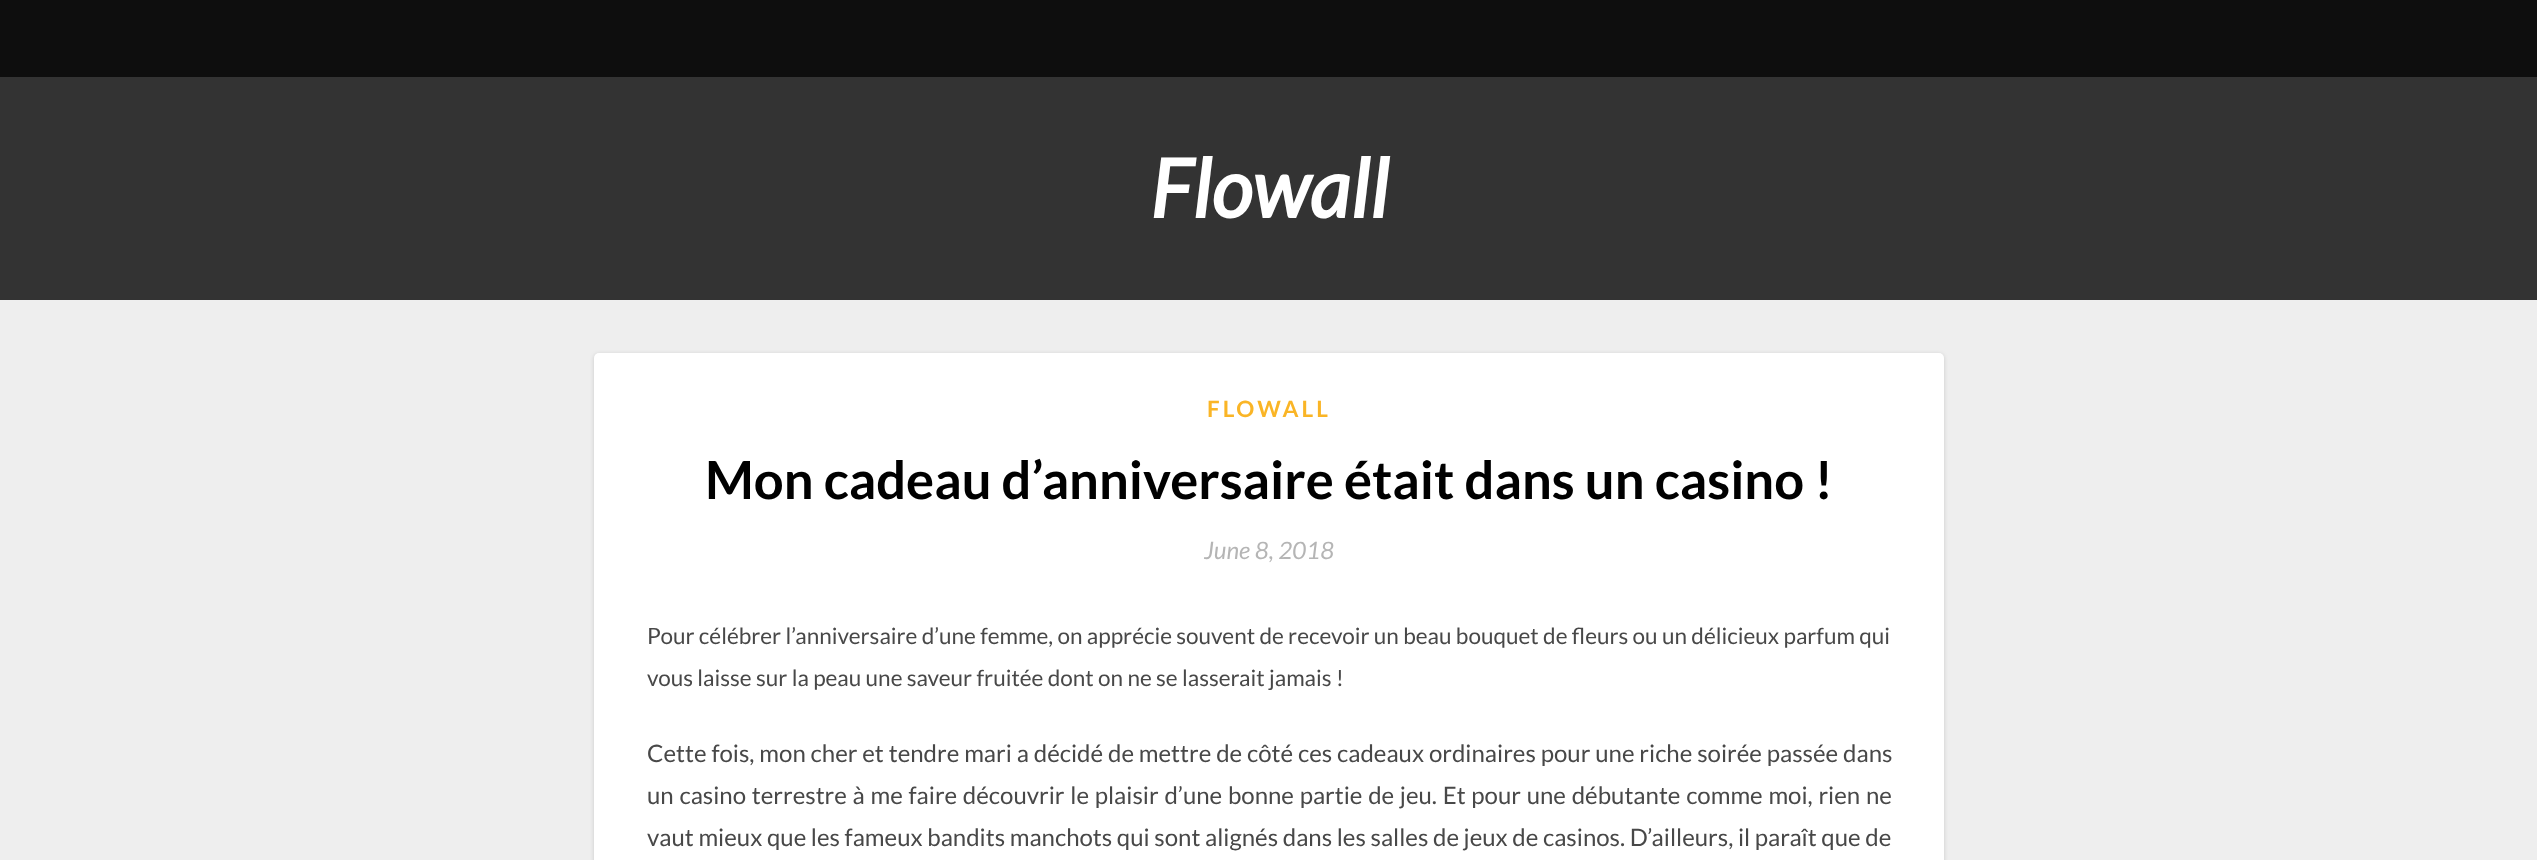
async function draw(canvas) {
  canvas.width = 2537;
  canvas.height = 860;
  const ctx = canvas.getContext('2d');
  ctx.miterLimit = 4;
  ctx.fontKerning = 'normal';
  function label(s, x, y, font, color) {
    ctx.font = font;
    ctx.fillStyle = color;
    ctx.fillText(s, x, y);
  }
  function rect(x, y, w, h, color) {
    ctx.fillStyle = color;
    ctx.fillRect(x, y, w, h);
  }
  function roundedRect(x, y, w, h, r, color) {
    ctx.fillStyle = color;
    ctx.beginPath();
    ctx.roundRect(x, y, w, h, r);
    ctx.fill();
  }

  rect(0, 0, 2537, 860, '#eee');
  rect(0, 77, 2537, 223, '#333');
  rect(0, 0, 2537, 77, '#0e0e0e');
  label('Flowall', 1150, 218, 'italic bold 81px Lato', '#fff');
  ctx.fillStyle = '#00000026';
  ctx.filter = 'blur(2px)';
  ctx.beginPath();
  ctx.roundRect(594, 354, 1350, 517, 5);
  ctx.fill();
  ctx.filter = 'none';
  roundedRect(594, 353, 1350, 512, 5, '#fff');
  ctx.letterSpacing = '3px';
  label('FLOWALL', 1207, 417, 'bold 22.5px Lato', '#fab526');
  ctx.letterSpacing = '0px';
  label('Mon cadeau d’anniversaire était dans un casino !', 705, 499, 'bold 52.5px Lato', '#000');
  label('June 8, 2018', 1204, 559, 'italic 24px Lato', '#b5b5b5');
  label('Pour célébrer l’anniversaire d’une femme, on apprécie souvent de recevoir un beau bouquet de fleurs ou un délicieux parfum qui', 647, 644, '22.5px Lato', '#484848');
  label('vous laisse sur la peau une saveur fruitée dont on ne se lasserait jamais !', 647, 686, '22.5px Lato', '#484848');
  ctx.wordSpacing = '0.25px';
  label('Cette fois, mon cher et tendre mari a décidé de mettre de côté ces cadeaux ordinaires pour une riche soirée passée dans', 647, 762, '24px Lato', '#484848');
  ctx.wordSpacing = '1.1px';
  label('un casino terrestre à me faire découvrir le plaisir d’une bonne partie de jeu. Et pour une débutante comme moi, rien ne', 647, 804, '24px Lato', '#484848');
  ctx.wordSpacing = '0px';
  label('vaut mieux que les fameux bandits manchots qui sont alignés dans les salles de jeux de casinos. D’ailleurs, il paraît que de', 647, 846, '24px Lato', '#484848');
}

draw(document.querySelector('canvas'));
